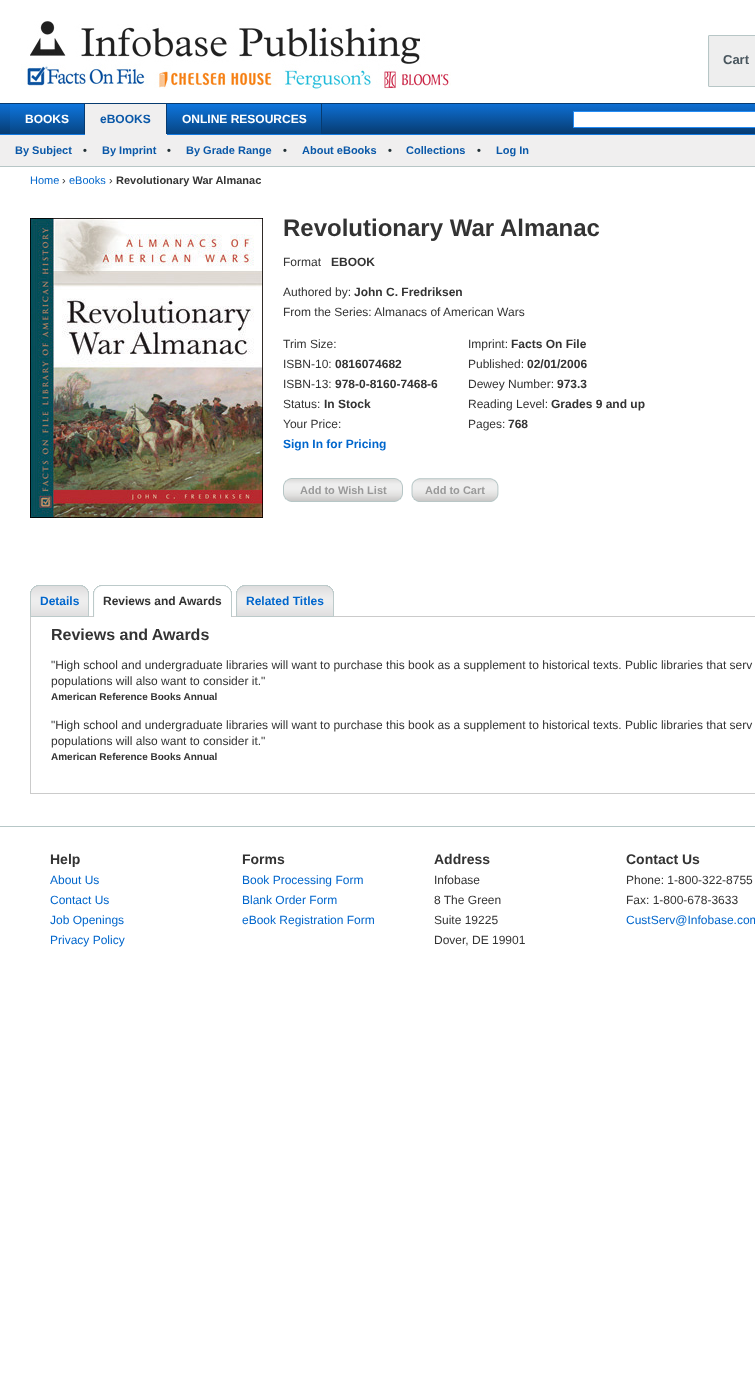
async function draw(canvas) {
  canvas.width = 755;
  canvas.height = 1386;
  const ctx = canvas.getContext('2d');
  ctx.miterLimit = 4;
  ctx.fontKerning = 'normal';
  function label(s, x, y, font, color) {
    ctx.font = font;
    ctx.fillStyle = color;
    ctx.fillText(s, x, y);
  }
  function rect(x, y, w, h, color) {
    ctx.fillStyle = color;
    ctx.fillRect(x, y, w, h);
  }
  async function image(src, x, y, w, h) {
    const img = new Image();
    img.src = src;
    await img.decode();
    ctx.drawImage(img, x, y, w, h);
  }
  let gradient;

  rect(0, 0, 755, 1386, '#fff');
  await image('assets/img1.png', 21, 21, 430, 69);
  await image('assets/img2.png', 708, 35, 47, 52);
  label('Cart', 723, 64, 'bold 13px Liberation Sans', '#49565e');
  gradient = ctx.createLinearGradient(500, 104, 500, 134);
  gradient.addColorStop(0, '#0e6fd3');
  gradient.addColorStop(1, '#073b70');
  ctx.fillStyle = gradient;
  ctx.fillRect(0, 104, 755, 30);
  rect(0, 103, 755, 1, '#073b70');
  rect(0, 134, 755, 1, '#137ae1');
  gradient = ctx.createLinearGradient(48, 104, 48, 134);
  gradient.addColorStop(0, '#0e75dd');
  gradient.addColorStop(1, '#074583');
  ctx.fillStyle = gradient;
  ctx.fillRect(10, 104, 74, 30);
  rect(84, 104, 1, 30, '#073b70');
  label('BOOKS', 25, 123, 'bold 12px Liberation Sans', '#fff');
  rect(85, 104, 82, 31, '#f0efef');
  rect(166, 104, 1, 30, '#073b70');
  label('eBOOKS', 100, 123, 'bold 12px Liberation Sans', '#0a58a8');
  gradient = ctx.createLinearGradient(245, 104, 245, 134);
  gradient.addColorStop(0, '#0e75dd');
  gradient.addColorStop(1, '#074583');
  ctx.fillStyle = gradient;
  ctx.fillRect(167, 104, 154, 30);
  rect(321, 104, 1, 30, '#073b70');
  label('ONLINE RESOURCES', 182, 123, 'bold 12px Liberation Sans', '#fff');
  ctx.beginPath();
  ctx.rect(573.5, 111.5, 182, 16);
  ctx.fill();
  ctx.strokeStyle = '#248cf5';
  ctx.stroke();
  rect(0, 135, 755, 31, '#f0efef');
  rect(0, 166, 755, 1, '#b7c6c6');
  label('By Subject', 15, 154, 'bold 11px Liberation Sans', '#0a58a8');
  label('•', 83, 154, 'bold 11px Liberation Sans', '#212f34');
  label('By Imprint', 102, 154, 'bold 11px Liberation Sans', '#0a58a8');
  label('•', 167, 154, 'bold 11px Liberation Sans', '#212f34');
  label('By Grade Range', 186, 154, 'bold 11px Liberation Sans', '#0a58a8');
  label('•', 283, 154, 'bold 11px Liberation Sans', '#212f34');
  label('About eBooks', 302, 154, 'bold 11px Liberation Sans', '#0a58a8');
  label('•', 388, 154, 'bold 11px Liberation Sans', '#212f34');
  label('Collections', 406, 154, 'bold 11px Liberation Sans', '#0a58a8');
  label('•', 477, 154, 'bold 11px Liberation Sans', '#212f34');
  label('Log In', 496, 154, 'bold 11px Liberation Sans', '#0a58a8');
  label('Home', 30, 184, '11px Liberation Sans', '#06c');
  label('›', 62, 184, '11px Liberation Sans', '#333');
  label('eBooks', 69, 184, '11px Liberation Sans', '#06c');
  label('›', 109, 184, '11px Liberation Sans', '#333');
  label('Revolutionary War Almanac', 116, 184, 'bold 11px Liberation Sans', '#333');
  await image('assets/img3.png', 30, 218, 233, 300);
  label('Revolutionary War Almanac', 283, 236, 'bold 24px Liberation Sans', '#333');
  label('Format', 283, 266, '12px Liberation Sans', '#333');
  label('EBOOK', 331, 266, 'bold 12px Liberation Sans', '#333');
  label('Authored by:', 283, 296, '12px Liberation Sans', '#333');
  label('John C. Fredriksen', 354, 296, 'bold 12px Liberation Sans', '#333');
  label('From the Series: Almanacs of American Wars', 283, 316, '12px Liberation Sans', '#333');
  label('Trim Size:', 283, 348, '12px Liberation Sans', '#333');
  label('ISBN-10:', 283, 368, '12px Liberation Sans', '#333');
  label('0816074682', 335, 368, 'bold 12px Liberation Sans', '#333');
  label('ISBN-13:', 283, 388, '12px Liberation Sans', '#333');
  label('978-0-8160-7468-6', 335, 388, 'bold 12px Liberation Sans', '#333');
  label('Status:', 283, 408, '12px Liberation Sans', '#333');
  label('In Stock', 324, 408, 'bold 12px Liberation Sans', '#333');
  label('Your Price:', 283, 428, '12px Liberation Sans', '#333');
  label('Sign In for Pricing', 283, 448, 'bold 12px Liberation Sans', '#06c');
  label('Imprint:', 468, 348, '12px Liberation Sans', '#333');
  label('Facts On File', 511, 348, 'bold 12px Liberation Sans', '#333');
  label('Published:', 468, 368, '12px Liberation Sans', '#333');
  label('02/01/2006', 527, 368, 'bold 12px Liberation Sans', '#333');
  label('Dewey Number:', 468, 388, '12px Liberation Sans', '#333');
  label('973.3', 557, 388, 'bold 12px Liberation Sans', '#333');
  label('Reading Level:', 468, 408, '12px Liberation Sans', '#333');
  label('Grades 9 and up', 551, 408, 'bold 12px Liberation Sans', '#333');
  label('Pages:', 468, 428, '12px Liberation Sans', '#333');
  label('768', 508, 428, 'bold 12px Liberation Sans', '#333');
  await image('assets/img4.png', 283, 478, 120, 24);
  label('Add to Wish List', 300, 494, 'bold 11px Liberation Sans', '#999');
  await image('assets/img5.png', 411, 478, 88, 24);
  label('Add to Cart', 425, 494, 'bold 11px Liberation Sans', '#999');
  rect(89, 616, 666, 1, '#cbcbcb');
  await image('assets/img6.png', 30, 585, 10, 32);
  await image('assets/img7.png', 40, 585, 49, 32);
  label('Details', 40, 605, 'bold 12px Liberation Sans', '#06c');
  await image('assets/img8.png', 93, 585, 10, 32);
  await image('assets/img9.png', 103, 585, 129, 32);
  label('Reviews and Awards', 103, 605, 'bold 12px Liberation Sans', '#333');
  await image('assets/img10.png', 236, 585, 10, 32);
  await image('assets/img11.png', 246, 585, 88, 32);
  label('Related Titles', 246, 605, 'bold 12px Liberation Sans', '#06c');
  rect(30, 793, 725, 1, '#cbcbcb');
  rect(30, 617, 1, 177, '#cbcbcb');
  label('Reviews and Awards', 51, 640, 'bold 16px Liberation Sans', '#333');
  label('"High school and undergraduate libraries will want to purchase this book as a supplement to historical texts. Public libraries that serv', 51, 669, '12px Liberation Sans', '#333');
  label('populations will also want to consider it."', 51, 685, '12px Liberation Sans', '#333');
  label('American Reference Books Annual', 51, 700, 'bold 10px Liberation Sans', '#333');
  label('"High school and undergraduate libraries will want to purchase this book as a supplement to historical texts. Public libraries that serv', 51, 729, '12px Liberation Sans', '#333');
  label('populations will also want to consider it."', 51, 745, '12px Liberation Sans', '#333');
  label('American Reference Books Annual', 51, 760, 'bold 10px Liberation Sans', '#333');
  rect(0, 826, 755, 1, '#b7c7c7');
  label('Help', 50, 864, 'bold 14px Liberation Sans', '#333');
  label('About Us', 50, 884, '12px Liberation Sans', '#06c');
  label('Contact Us', 50, 904, '12px Liberation Sans', '#06c');
  label('Job Openings', 50, 924, '12px Liberation Sans', '#06c');
  label('Privacy Policy', 50, 944, '12px Liberation Sans', '#06c');
  label('Forms', 242, 864, 'bold 14px Liberation Sans', '#333');
  label('Book Processing Form', 242, 884, '12px Liberation Sans', '#06c');
  label('Blank Order Form', 242, 904, '12px Liberation Sans', '#06c');
  label('eBook Registration Form', 242, 924, '12px Liberation Sans', '#06c');
  label('Address', 434, 864, 'bold 14px Liberation Sans', '#333');
  label('Infobase', 434, 884, '12px Liberation Sans', '#333');
  label('8 The Green', 434, 904, '12px Liberation Sans', '#333');
  label('Suite 19225', 434, 924, '12px Liberation Sans', '#333');
  label('Dover, DE 19901', 434, 944, '12px Liberation Sans', '#333');
  label('Contact Us', 626, 864, 'bold 14px Liberation Sans', '#333');
  label('Phone: 1-800-322-8755', 626, 884, '12px Liberation Sans', '#333');
  label('Fax: 1-800-678-3633', 626, 904, '12px Liberation Sans', '#333');
  label('CustServ@Infobase.com', 626, 924, '12px Liberation Sans', '#06c');
}

draw(document.querySelector('canvas'));
